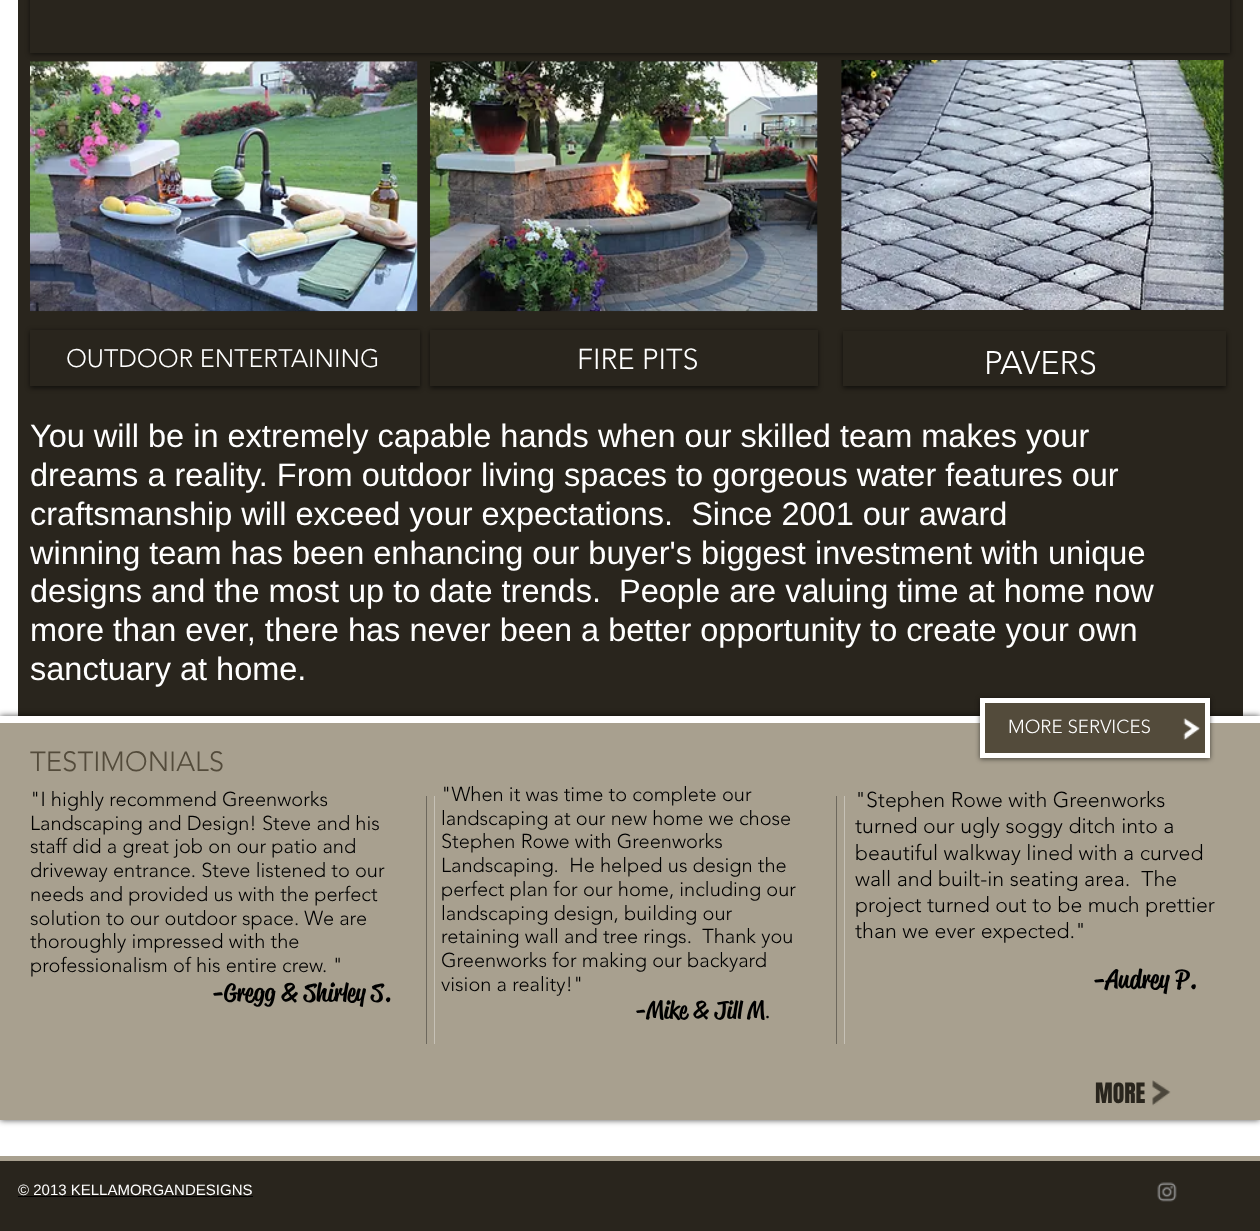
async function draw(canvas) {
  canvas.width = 1260;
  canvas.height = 1231;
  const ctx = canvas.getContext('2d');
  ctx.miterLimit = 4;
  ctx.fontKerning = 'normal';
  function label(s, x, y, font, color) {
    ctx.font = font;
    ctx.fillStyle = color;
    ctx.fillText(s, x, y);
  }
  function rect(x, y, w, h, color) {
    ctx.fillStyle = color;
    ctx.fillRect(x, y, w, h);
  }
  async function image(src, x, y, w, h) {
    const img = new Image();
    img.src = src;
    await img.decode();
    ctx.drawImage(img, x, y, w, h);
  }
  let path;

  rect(0, 0, 1260, 1231, '#fff');
  rect(18, 0, 1225, 716, '#29251d');
  ctx.fillStyle = '#00000099';
  ctx.filter = 'blur(2.5px)';
  ctx.beginPath();
  ctx.rect(30, -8, 1200, 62);
  ctx.fill();
  ctx.filter = 'none';
  rect(30, 0, 1200, 53, '#29251d');
  await image('assets/img1.png', 30, 61, 388, 251);
  await image('assets/img2.png', 430, 61, 388, 251);
  await image('assets/img3.png', 841, 60, 383, 250);
  ctx.save();
  path = new Path2D('M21 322H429V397H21ZM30 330H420V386H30Z');
  ctx.clip(path, 'evenodd');
  ctx.fillStyle = '#00000099';
  ctx.filter = 'blur(2.5px)';
  ctx.beginPath();
  ctx.rect(30, 331, 390, 57);
  ctx.fill();
  ctx.filter = 'none';
  ctx.restore();
  label('OUTDOOR ENTERTAINING', 66, 367, '300 25px "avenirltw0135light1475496"', '#fff');
  ctx.fillStyle = '#00000099';
  ctx.filter = 'blur(2.5px)';
  ctx.beginPath();
  ctx.rect(430, 331, 388, 57);
  ctx.fill();
  ctx.filter = 'none';
  rect(430, 330, 388, 56, '#29251d');
  label('FIRE PITS', 577, 369, '300 28.75px "avenirltw0135light1475496"', '#fff');
  ctx.fillStyle = '#00000099';
  ctx.filter = 'blur(2.5px)';
  ctx.beginPath();
  ctx.rect(843, 333, 383, 55);
  ctx.fill();
  ctx.filter = 'none';
  rect(843, 331, 383, 55, '#29251d');
  label('PAVERS', 984, 374, '300 32.5px "avenirltw0135light1475496"', '#fff');
  label('You will be in extremely capable hands when our skilled team makes your', 30, 447, '32.5px Liberation Sans', '#fff');
  label('dreams a reality. From outdoor living spaces to gorgeous water features our', 30, 486, '32.5px Liberation Sans', '#fff');
  label('craftsmanship will exceed your expectations.  Since 2001 our award', 30, 525, '32.5px Liberation Sans', '#fff');
  label('winning team has been enhancing our buyer\'s biggest investment with unique', 30, 564, '32.5px Liberation Sans', '#fff');
  label('designs and the most up to date trends.  People are valuing time at home now', 30, 602, '32.5px Liberation Sans', '#fff');
  label('more than ever, there has never been a better opportunity to create your own', 30, 641, '32.5px Liberation Sans', '#fff');
  label('sanctuary at home.', 30, 680, '32.5px Liberation Sans', '#fff');
  ctx.fillStyle = '#000000b3';
  ctx.filter = 'blur(3px)';
  ctx.beginPath();
  ctx.rect(0, 716, 1260, 404);
  ctx.fill();
  ctx.filter = 'none';
  rect(0, 723, 1260, 397, '#a8a08f');
  rect(0, 716, 1260, 7, '#fff');
  ctx.fillStyle = '#00000099';
  ctx.filter = 'blur(2.5px)';
  ctx.beginPath();
  ctx.rect(980, 699, 230, 60);
  ctx.fill();
  ctx.filter = 'none';
  ctx.fillStyle = '#534b3b';
  ctx.beginPath();
  ctx.rect(982.5, 700.5, 225, 55);
  ctx.fill();
  ctx.strokeStyle = '#fff';
  ctx.lineWidth = 5;
  ctx.stroke();
  label('MORE SERVICES', 1008, 733, '300 18.75px "avenirltw0135light1475496"', '#fff');
  await image('assets/img4.png', 1183, 718, 18, 22);
  label('TESTIMONIALS', 30, 771, '300 27.5px "avenirltw0135light1475496"', '#534b3b');
  label('"I highly recommend Greenworks', 30, 806, '300 20px "avenirltw0135light1475496"', '#000');
  label('Landscaping and Design! Steve and his', 30, 830, '300 20px "avenirltw0135light1475496"', '#000');
  label('staff did a great job on our patio and', 30, 853, '300 20px "avenirltw0135light1475496"', '#000');
  label('driveway entrance. Steve listened to our', 30, 877, '300 20px "avenirltw0135light1475496"', '#000');
  label('needs and provided us with the perfect', 30, 901, '300 20px "avenirltw0135light1475496"', '#000');
  label('solution to our outdoor space. We are', 30, 925, '300 20px "avenirltw0135light1475496"', '#000');
  label('thoroughly impressed with the', 30, 948, '300 20px "avenirltw0135light1475496"', '#000');
  label('professionalism of his entire crew. "', 30, 972, '300 20px "avenirltw0135light1475496"', '#000');
  label('-Gregg & Shirley S.', 212, 1001, '500 25px "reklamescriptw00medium"', '#000');
  rect(434, 796, 1, 248, '#c6c1b6');
  rect(426, 796, 1, 248, '#6d685d');
  label('"When it was time to complete our', 441, 801, '300 20px "avenirltw0135light1475496"', '#000');
  label('landscaping at our new home we chose', 441, 825, '300 20px "avenirltw0135light1475496"', '#000');
  label('Stephen Rowe with Greenworks', 441, 848, '300 20px "avenirltw0135light1475496"', '#000');
  label('Landscaping.  He helped us design the', 441, 872, '300 20px "avenirltw0135light1475496"', '#000');
  label('perfect plan for our home, including our', 441, 896, '300 20px "avenirltw0135light1475496"', '#000');
  label('landscaping design, building our', 441, 920, '300 20px "avenirltw0135light1475496"', '#000');
  label('retaining wall and tree rings.  Thank you', 441, 943, '300 20px "avenirltw0135light1475496"', '#000');
  label('Greenworks for making our backyard', 441, 967, '300 20px "avenirltw0135light1475496"', '#000');
  label('vision a reality!"', 441, 991, '300 20px "avenirltw0135light1475496"', '#000');
  label('-Mike & Jill M', 635, 1018, '500 23.75px "reklamescriptw00medium"', '#000');
  label('.', 765, 1018, '20px Playfair Display', '#000');
  rect(844, 796, 1, 248, '#c6c1b6');
  rect(836, 796, 1, 248, '#6d685d');
  label('"Stephen Rowe with Greenworks', 855, 807, '300 21.25px "avenirltw0135light1475496"', '#000');
  label('turned our ugly soggy ditch into a', 855, 833, '300 21.25px "avenirltw0135light1475496"', '#000');
  label('beautiful walkway lined with a curved', 855, 860, '300 21.25px "avenirltw0135light1475496"', '#000');
  label('wall and built-in seating area.  The', 855, 886, '300 21.25px "avenirltw0135light1475496"', '#000');
  label('project turned out to be much prettier', 855, 912, '300 21.25px "avenirltw0135light1475496"', '#000');
  label('than we ever expected."', 855, 938, '300 21.25px "avenirltw0135light1475496"', '#000');
  label('-Audrey P.', 1093, 988, '500 26px "reklamescriptw00medium"', '#000');
  label('MORE', 1095, 1103, '23.75px Anton', '#29251d');
  await image('assets/img5.png', 1152, 1080, 19, 26);
  rect(0, 1161, 1260, 70, '#29251d');
  rect(0, 1156, 1260, 5, '#a8a08f');
  label('© 2013 KELLAMORGANDESIGNS', 18, 1195, '15px Liberation Sans', '#fff');
  rect(18, 1196, 235, 1, '#000');
  await image('assets/img6.png', 1157, 1182, 20, 20);
}

draw(document.querySelector('canvas'));
